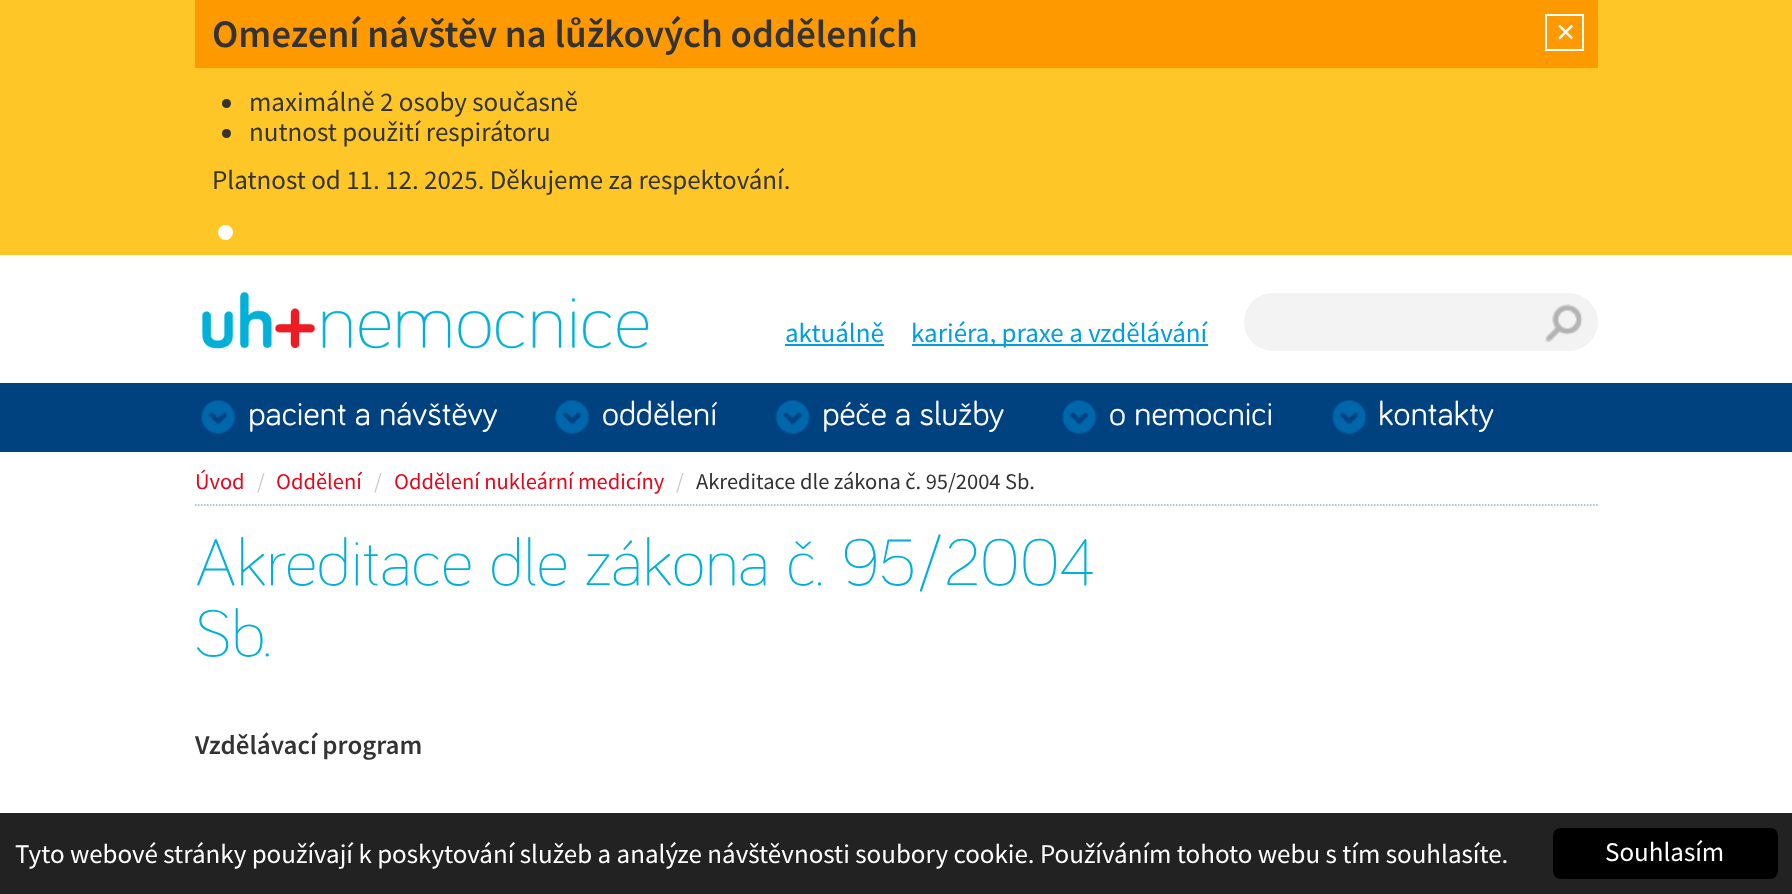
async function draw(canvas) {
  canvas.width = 1792;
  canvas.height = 894;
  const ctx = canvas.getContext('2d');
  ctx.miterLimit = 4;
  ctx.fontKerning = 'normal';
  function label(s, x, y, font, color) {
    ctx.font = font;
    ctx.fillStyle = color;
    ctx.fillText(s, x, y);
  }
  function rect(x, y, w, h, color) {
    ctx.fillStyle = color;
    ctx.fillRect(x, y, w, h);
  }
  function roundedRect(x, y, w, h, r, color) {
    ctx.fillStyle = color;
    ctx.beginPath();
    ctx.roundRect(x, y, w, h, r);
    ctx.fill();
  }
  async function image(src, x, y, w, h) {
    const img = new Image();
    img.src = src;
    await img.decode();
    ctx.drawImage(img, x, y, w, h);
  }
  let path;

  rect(0, 0, 1792, 894, '#fff');
  rect(0, 0, 1792, 255, '#fec627');
  rect(195, 0, 1403, 68, '#f90');
  label('Omezení návštěv na lůžkových odděleních', 212, 47, '600 39px Source Sans Pro', '#333');
  ctx.beginPath();
  ctx.arc(226.5, 103.5, 4.5, 0, 2 * Math.PI);
  ctx.fill();
  label('maximálně 2 osoby současně', 249, 111, '27px Source Sans Pro', '#333');
  ctx.beginPath();
  ctx.arc(226.5, 133.5, 4.5, 0, 2 * Math.PI);
  ctx.fill();
  label('nutnost použití respirátoru', 249, 141, '27px Source Sans Pro', '#333');
  label('Platnost od 11. 12. 2025. Děkujeme za respektování.', 212, 189, '27px Source Sans Pro', '#333');
  ctx.fillStyle = '#fff';
  ctx.beginPath();
  ctx.arc(225.5, 232.5, 7.5, 0, 2 * Math.PI);
  ctx.fill();
  ctx.strokeStyle = '#fff';
  ctx.lineWidth = 2;
  ctx.strokeRect(1546, 15, 37, 35);
  label('×', 1556, 43, '33px Liberation Sans', '#fff');
  await image('assets/img1.png', 201, 291, 447, 58);
  label('aktuálně', 785, 342, '27px Source Sans Pro', '#009de0');
  rect(785, 344, 99, 2, '#009de0');
  rect(912, 344, 296, 2, '#009de0');
  label('kariéra, praxe a vzdělávání', 911, 342, '27px Source Sans Pro', '#009de0');
  ctx.fillStyle = '#f3f3f3';
  ctx.beginPath();
  ctx.roundRect(1539, 293, 59, 58, [0, 29, 29, 0]);
  ctx.fill();
  ctx.beginPath();
  ctx.roundRect(1244, 293, 297, 58, [29, 0, 0, 29]);
  ctx.fill();
  await image('assets/img2.png', 1545, 304, 38, 38);
  rect(0, 383, 1792, 69, '#004180');
  await image('assets/img3.png', 201, 400, 35, 34);
  label('pacient a návštěvy', 248, 425, '34.5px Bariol', '#fff');
  await image('assets/img3.png', 555, 400, 35, 34);
  label('oddělení', 602, 425, '34.5px Bariol', '#fff');
  await image('assets/img4.png', 775, 400, 35, 34);
  label('péče a služby', 822, 425, '34.5px Bariol', '#fff');
  await image('assets/img5.png', 1062, 400, 35, 34);
  label('o nemocnici', 1109, 425, '34.5px Bariol', '#fff');
  await image('assets/img5.png', 1332, 400, 35, 34);
  label('kontakty', 1378, 425, '34.5px Bariol', '#fff');
  path = new Path2D('M195 505H1597.5');
  ctx.strokeStyle = '#8eb1cb';
  ctx.lineWidth = 1.5;
  ctx.setLineDash([1.5, 1.5]);
  ctx.stroke(path);
  label('Úvod', 195, 489, '22.5px Source Sans Pro', '#e0081c');
  label('/', 257, 489, '22.5px Source Sans Pro', '#ccc');
  label('Oddělení', 276, 489, '22.5px Source Sans Pro', '#e0081c');
  label('/', 374, 489, '22.5px Source Sans Pro', '#ccc');
  label('Oddělení nukleární medicíny', 394, 489, '22.5px Source Sans Pro', '#e0081c');
  label('/', 676, 489, '22.5px Source Sans Pro', '#ccc');
  label('Akreditace dle zákona č. 95/2004 Sb.', 696, 489, '22.5px Source Sans Pro', '#333');
  label('Akreditace dle zákona č. 95/2004', 195, 585, '300 67.5px Bariol', '#00b0d8');
  label('Sb.', 195, 656, '300 67.5px Bariol', '#00b0d8');
  label('Vzdělávací program', 195, 754, '600 27px Source Sans Pro', '#333');
  rect(0, 813, 1792, 81, '#222');
  label('Tyto webové stránky používají k poskytování služeb a analýze návštěvnosti soubory cookie. Používáním tohoto webu s tím souhlasíte.', 15, 863, '27px Source Sans Pro', '#fff');
  roundedRect(1553, 828, 225, 51, 8, '#000');
  label('Souhlasím', 1605, 861, '27px Source Sans Pro', '#fff');
}

draw(document.querySelector('canvas'));
